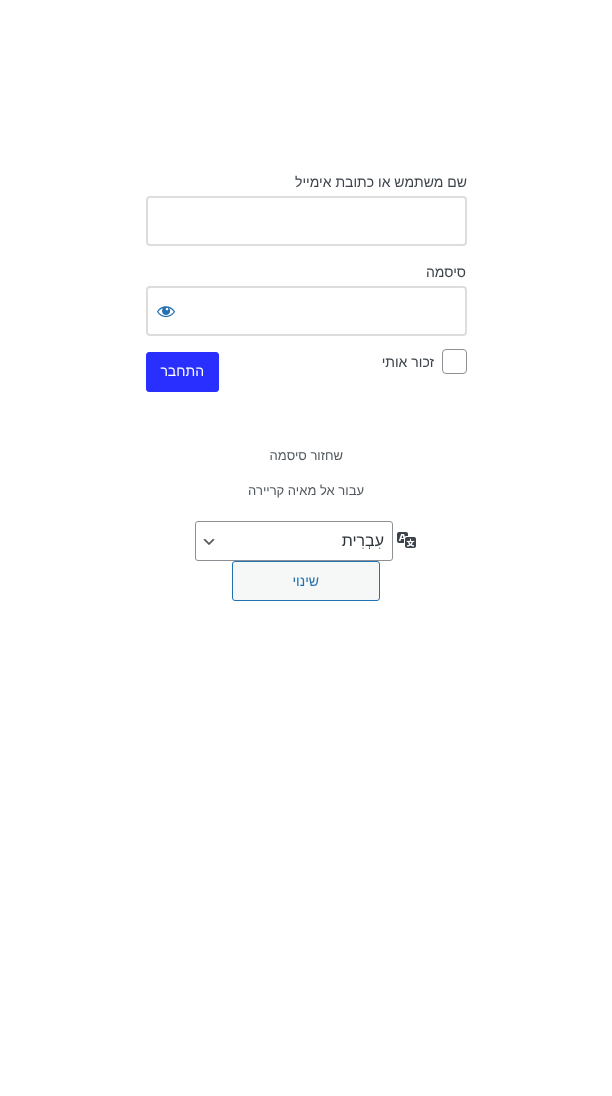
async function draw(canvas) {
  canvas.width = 612;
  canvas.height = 1096;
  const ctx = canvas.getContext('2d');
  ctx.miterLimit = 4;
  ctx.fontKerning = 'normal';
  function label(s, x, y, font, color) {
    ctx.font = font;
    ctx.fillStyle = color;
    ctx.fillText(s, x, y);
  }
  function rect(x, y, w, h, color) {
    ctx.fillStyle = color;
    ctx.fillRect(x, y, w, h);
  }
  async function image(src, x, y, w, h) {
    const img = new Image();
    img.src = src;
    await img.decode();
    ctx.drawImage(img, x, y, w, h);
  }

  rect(0, 0, 612, 1096, '#fff');
  ctx.direction = 'rtl';
  label('שם משתמש או כתובת אימייל', 467, 187, '14px Liberation Sans', '#3c434a');
  ctx.beginPath();
  ctx.roundRect(147, 197, 319, 48, 3);
  ctx.strokeStyle = '#ddd';
  ctx.lineWidth = 2;
  ctx.stroke();
  label('סיסמה', 466, 277, '14px Liberation Sans', '#3c434a');
  ctx.beginPath();
  ctx.roundRect(147, 287, 319, 48, 3);
  ctx.stroke();
  await image('assets/img1.png', 157, 306, 18, 12);
  ctx.beginPath();
  ctx.roundRect(442.5, 349.5, 24, 24, 3.5);
  ctx.strokeStyle = '#8c8f94';
  ctx.lineWidth = 1;
  ctx.stroke();
  label('זכור אותי', 434, 367, '14px Liberation Sans', '#3c434a');
  ctx.fillStyle = '#282fff';
  ctx.beginPath();
  ctx.roundRect(146.5, 352.5, 72, 39, 2.5);
  ctx.fill();
  ctx.strokeStyle = '#282fff';
  ctx.stroke();
  label('התחבר', 204, 376, '14px Liberation Sans', '#fff');
  label('שחזור סיסמה', 343, 460, '13px Liberation Sans', '#50575e');
  label('עבור אל מאיה קריירה', 364, 495, '13px Liberation Sans', '#50575e');
  await image('assets/img2.png', 397, 532, 19, 16);
  await image('assets/img3.png', 203, 538, 12, 7);
  ctx.beginPath();
  ctx.roundRect(195.5, 521.5, 197, 39, 2.5);
  ctx.strokeStyle = '#8c8f94';
  ctx.stroke();
  label('עִבְרִית', 384, 546, '16px Liberation Sans', '#2c3338');
  ctx.fillStyle = '#f6f7f7';
  ctx.beginPath();
  ctx.roundRect(232.5, 561.5, 147, 39, 2.5);
  ctx.fill();
  ctx.strokeStyle = '#2271b1';
  ctx.stroke();
  label('שינוי', 319, 586, '14px Liberation Sans', '#2271b1');
}

draw(document.querySelector('canvas'));
